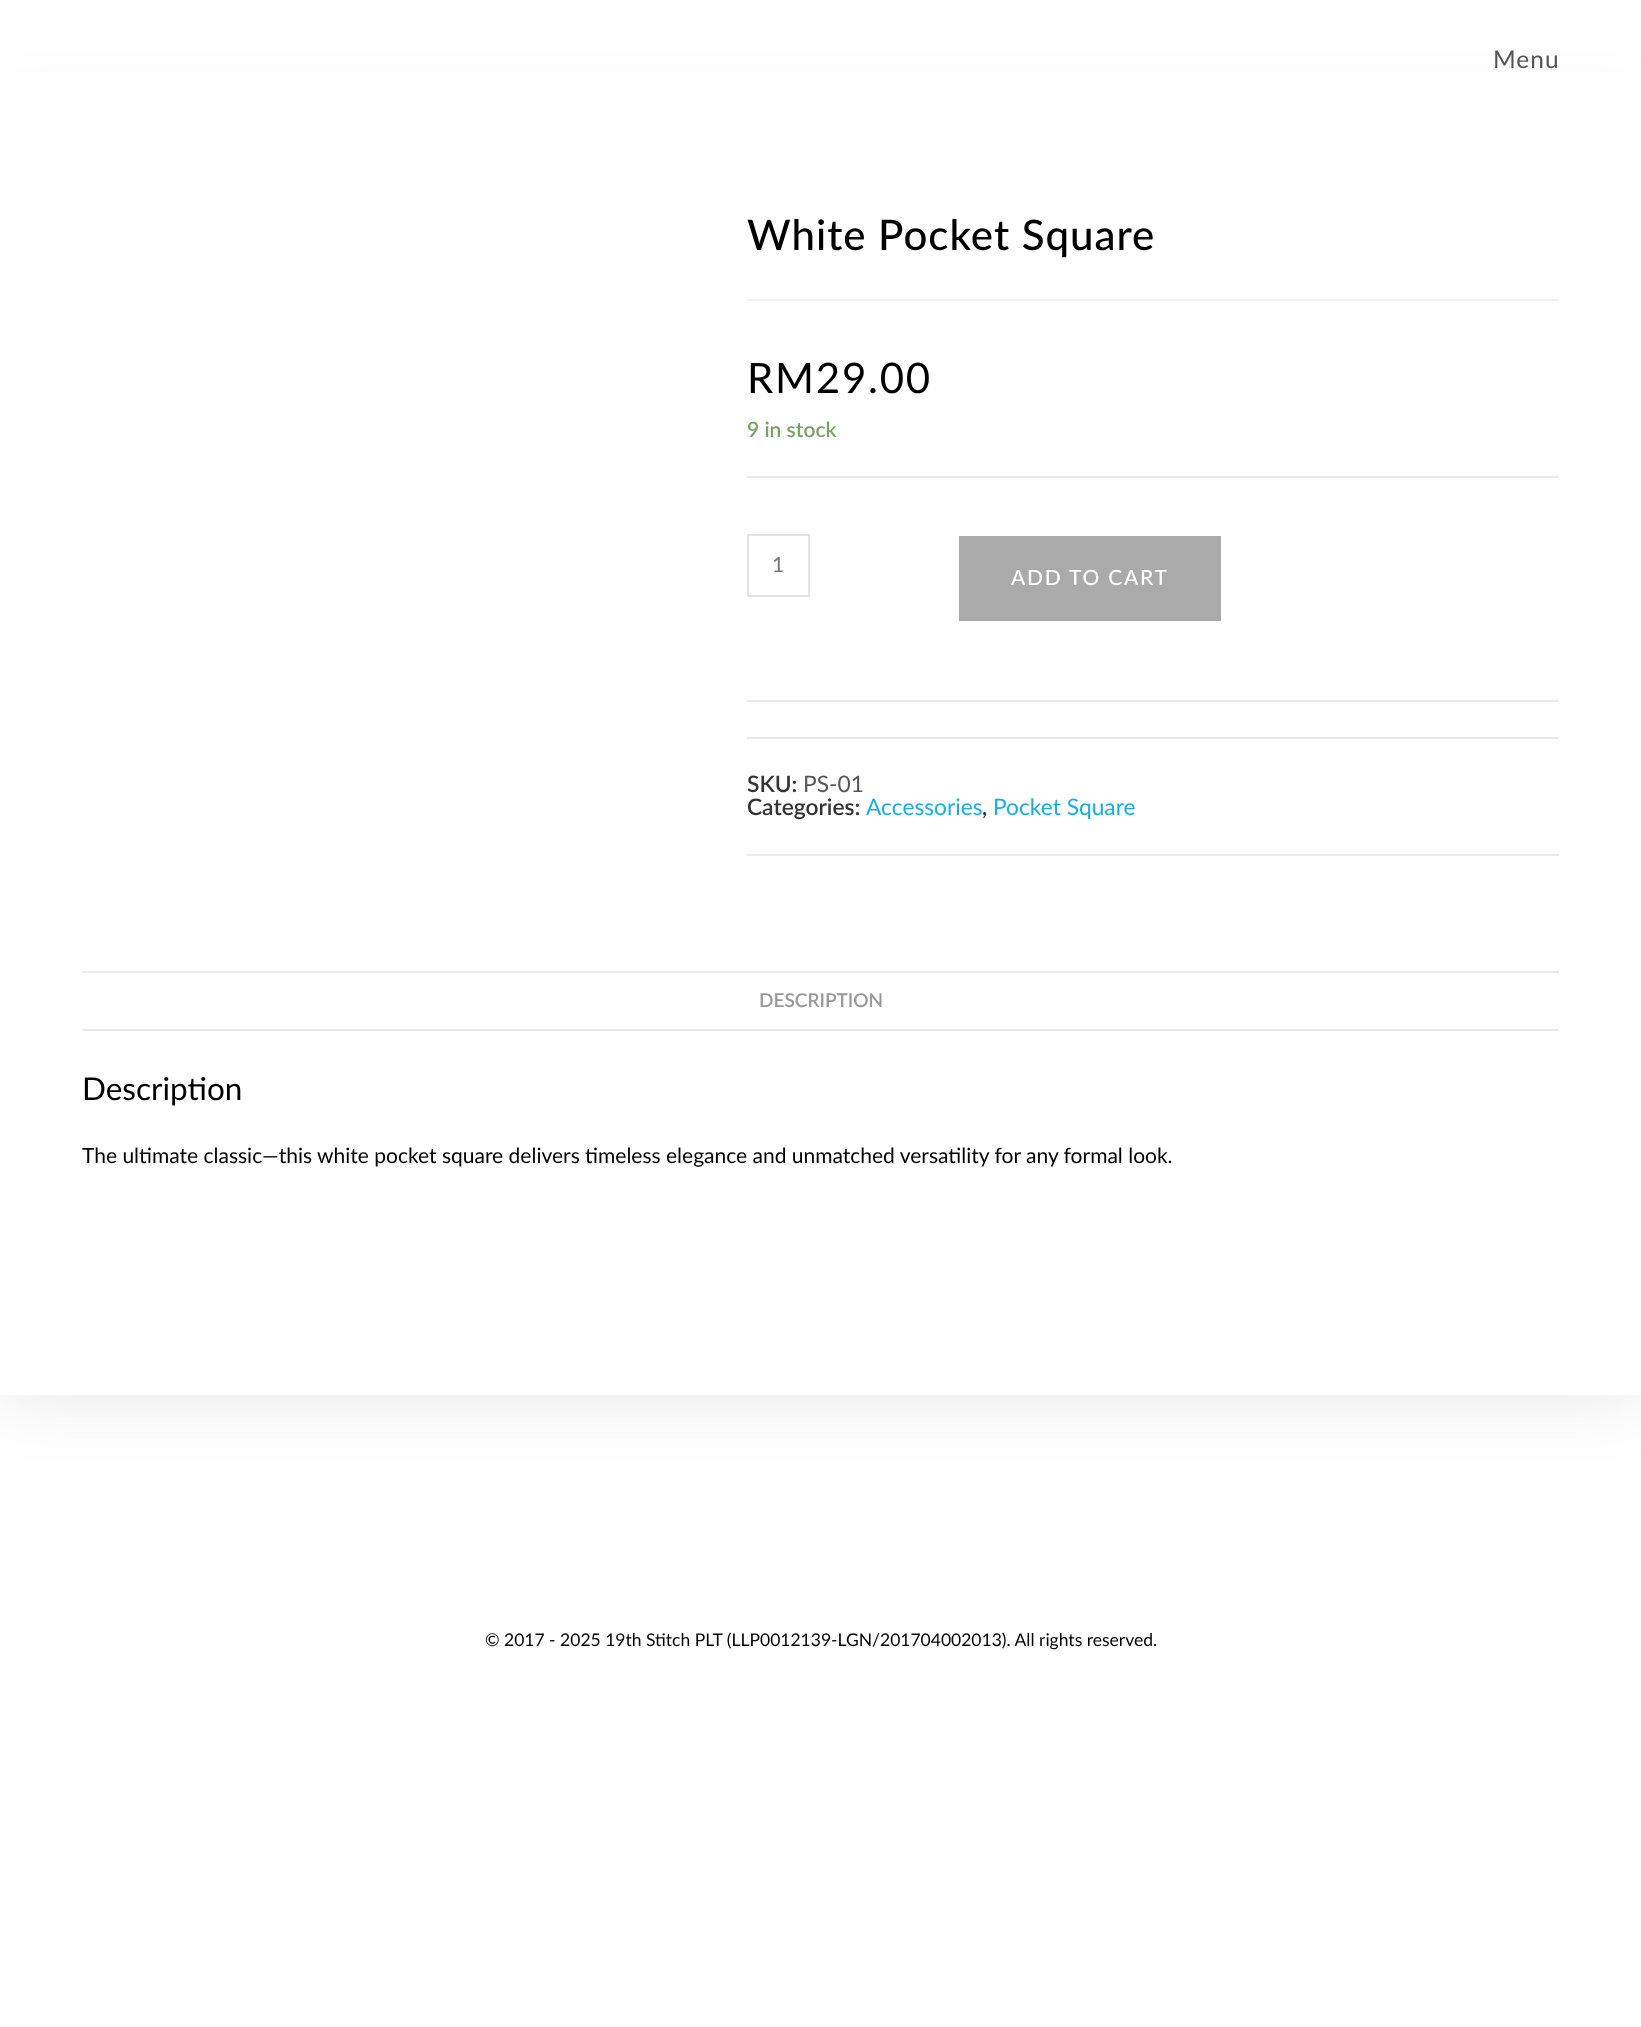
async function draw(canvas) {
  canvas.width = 1641;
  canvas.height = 2027;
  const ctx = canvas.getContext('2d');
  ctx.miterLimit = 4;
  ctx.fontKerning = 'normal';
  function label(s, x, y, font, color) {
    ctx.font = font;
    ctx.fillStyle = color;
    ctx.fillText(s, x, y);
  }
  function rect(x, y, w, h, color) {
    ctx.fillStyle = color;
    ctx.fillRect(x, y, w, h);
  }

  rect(0, 0, 1641, 2027, '#fff');
  ctx.fillStyle = '#0000001a';
  ctx.filter = 'blur(35px)';
  ctx.beginPath();
  ctx.rect(0, 117, 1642, 1278);
  ctx.fill();
  ctx.filter = 'none';
  ctx.letterSpacing = '1px';
  label('Menu', 1493, 68, '24.5px Lato', '#555');
  rect(0, 72, 1641, 1323, '#fff');
  rect(747, 299, 812, 2, '#f1f1f1');
  label('White Pocket Square', 747, 250, '500 42px Lato', '#000');
  ctx.letterSpacing = '1.75px';
  label('RM29.00', 747, 393, '42px Lato', '#000');
  ctx.letterSpacing = '0px';
  label('9 in stock', 747, 437, '600 21px Lato', '#77a464');
  rect(747, 476, 812, 2, '#eaeaea');
  rect(747, 700, 812, 2, '#eaeaea');
  ctx.strokeStyle = '#e4e4e4';
  ctx.lineWidth = 2;
  ctx.strokeRect(748, 535, 61, 61);
  label('1', 772, 572, '21px Lato', '#777');
  rect(959, 536, 262, 85, '#aaa');
  ctx.letterSpacing = '1.75px';
  label('ADD TO CART', 1011, 585, '500 21px Lato', '#fff');
  rect(747, 737, 812, 2, '#eaeaea');
  rect(747, 854, 812, 2, '#eaeaea');
  ctx.letterSpacing = '0px';
  label('SKU:', 747, 792, '600 22.75px Lato', '#333');
  label('PS-01', 803, 792, '22.75px Lato', '#555');
  label('Categories:', 747, 815, '600 22.75px Lato', '#333');
  label('Accessories', 866, 815, '22.75px Lato', '#13aff0');
  label(',', 982, 815, '600 22.75px Lato', '#333');
  label('Pocket Square', 993, 815, '22.75px Lato', '#13aff0');
  rect(82, 971, 1477, 2, '#eaeaea');
  rect(82, 1029, 1477, 2, '#eaeaea');
  label('DESCRIPTION', 759, 1007, '600 19px Lato', '#999');
  label('Description', 82, 1100, '31.5px Lato', '#000');
  label('The ultimate classic—this white pocket square delivers timeless elegance and unmatched versatility for any formal look.', 82, 1163, '21px Lato', '#000');
  label('© 2017 - 2025 19th Stitch PLT (LLP0012139-LGN/201704002013). All rights reserved.', 485, 1646, '17.5px Lato', '#000');
}

draw(document.querySelector('canvas'));
